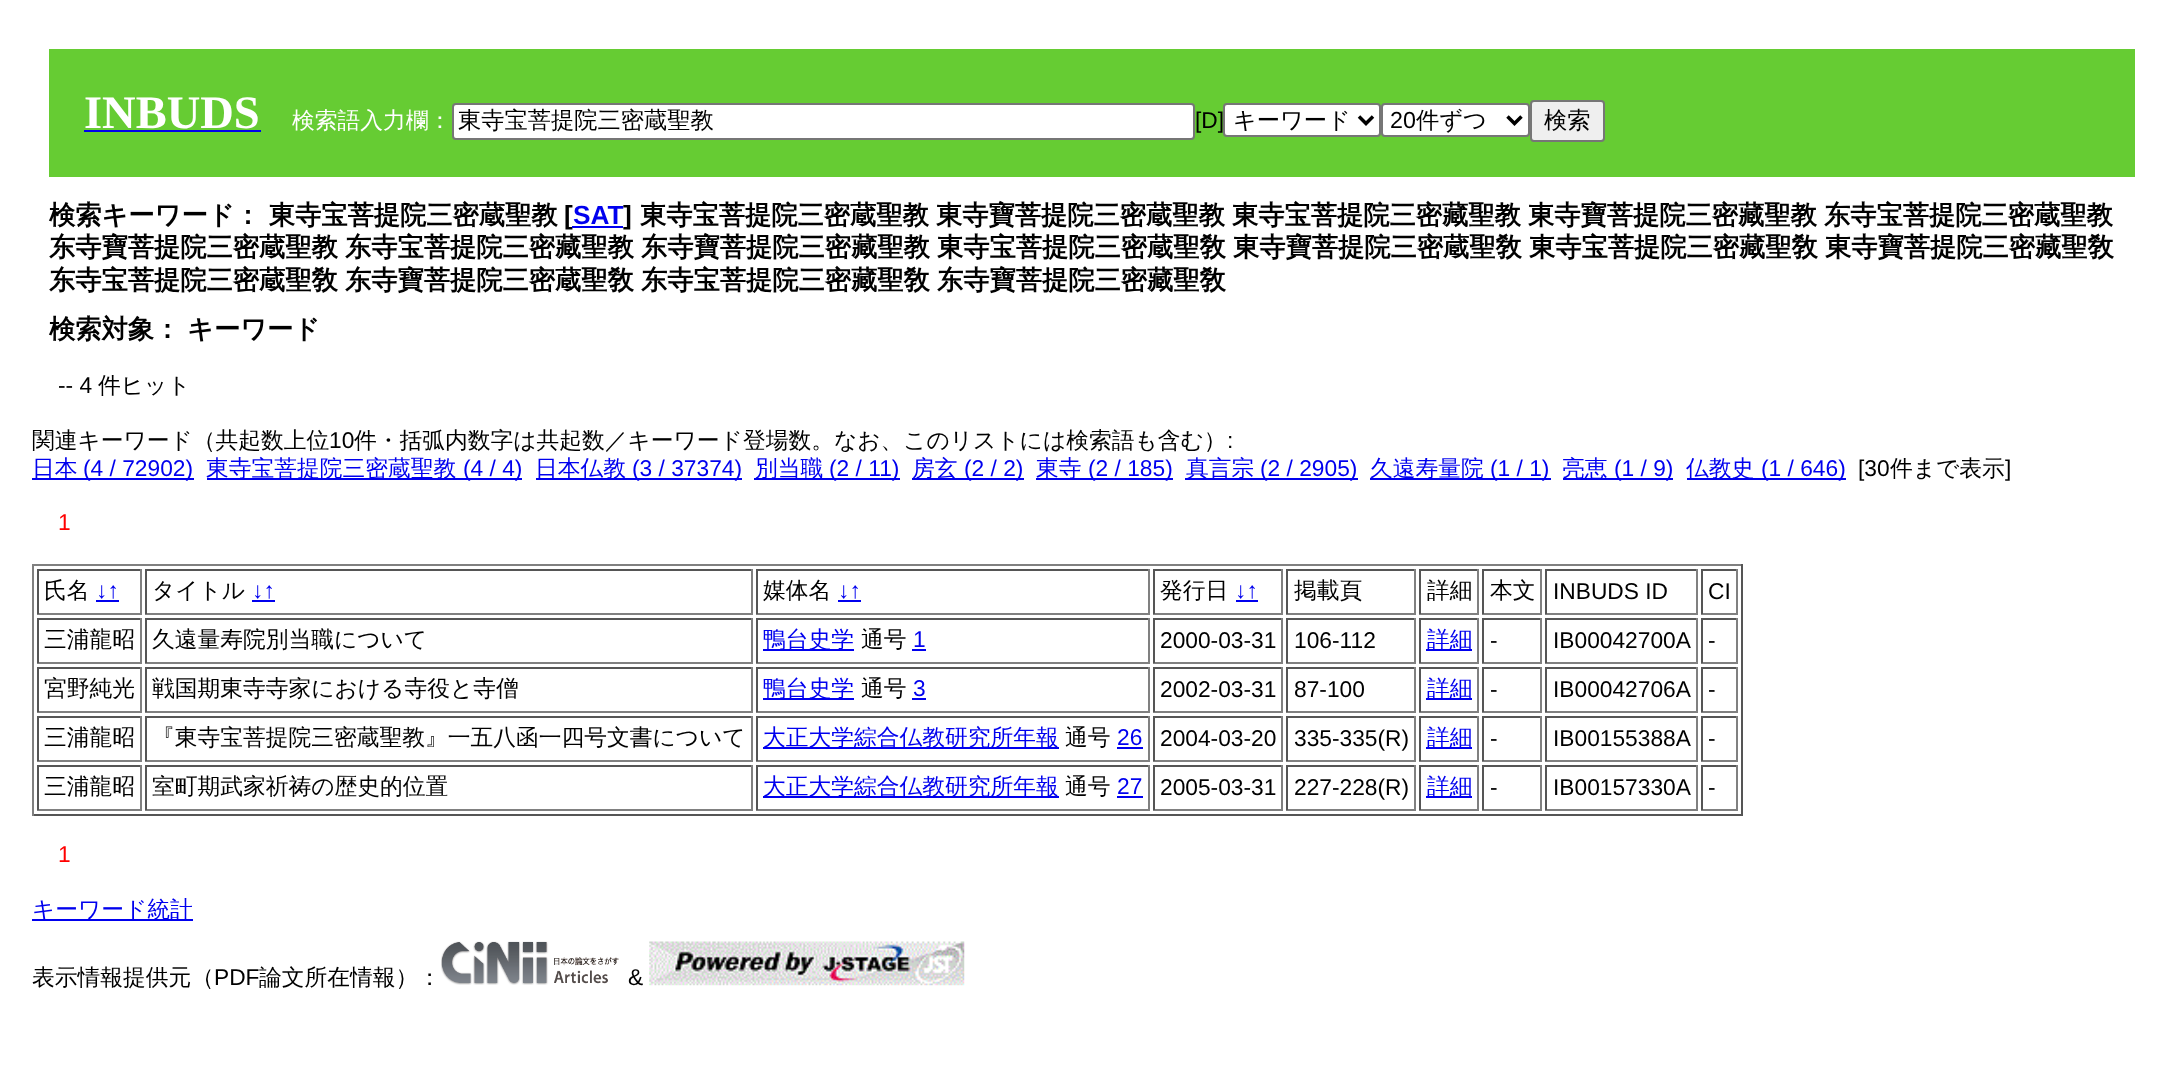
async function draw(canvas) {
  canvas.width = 2183;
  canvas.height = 1091;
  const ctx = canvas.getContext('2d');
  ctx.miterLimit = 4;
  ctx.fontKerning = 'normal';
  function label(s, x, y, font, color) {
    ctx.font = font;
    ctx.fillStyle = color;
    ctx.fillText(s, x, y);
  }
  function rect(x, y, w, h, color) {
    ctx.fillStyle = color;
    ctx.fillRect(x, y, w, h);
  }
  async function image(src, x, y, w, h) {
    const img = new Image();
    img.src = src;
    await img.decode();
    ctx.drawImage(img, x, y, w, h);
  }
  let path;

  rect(0, 0, 2183, 1091, '#fff');
  rect(49, 49, 2086, 128, '#6c3');
  label('INBUDS', 84, 128, 'bold 46.5px Liberation Serif', '#fff');
  rect(84, 130, 177, 2, '#00e');
  label('検索語入力欄：', 292, 128, '500 22.75px WenQuanYi Zen Hei', '#fff');
  ctx.beginPath();
  ctx.roundRect(453, 104, 741, 35, 3);
  ctx.fill();
  ctx.strokeStyle = '#767676';
  ctx.lineWidth = 2;
  ctx.stroke();
  label('東寺宝菩提院三密蔵聖教', 458, 128, '500 23.25px WenQuanYi Zen Hei', '#000');
  label('[D]', 1195, 128, '22.75px Liberation Sans', '#000');
  ctx.fillStyle = '#fff';
  ctx.beginPath();
  ctx.roundRect(1224, 104, 156, 32, 3);
  ctx.fill();
  ctx.stroke();
  path = new Path2D('M1359 116.5L1366 123.5L1373 116.5');
  ctx.strokeStyle = '#000';
  ctx.lineWidth = 3.5;
  ctx.stroke(path);
  label('キーワード', 1233, 128, '500 23.25px WenQuanYi Zen Hei', '#000');
  ctx.fillStyle = '#fff';
  ctx.beginPath();
  ctx.roundRect(1382, 104, 147, 32, 3);
  ctx.fill();
  ctx.strokeStyle = '#767676';
  ctx.lineWidth = 2;
  ctx.stroke();
  path = new Path2D('M1507.5 116.5L1514.5 123.5L1521.5 116.5');
  ctx.strokeStyle = '#000';
  ctx.lineWidth = 3.5;
  ctx.stroke(path);
  label('20', 1390, 128, '23.25px Liberation Sans', '#000');
  label('件ずつ', 1416, 128, '500 23.25px WenQuanYi Zen Hei', '#000');
  ctx.fillStyle = '#efefef';
  ctx.beginPath();
  ctx.roundRect(1531, 101, 73, 40, 3);
  ctx.fill();
  ctx.strokeStyle = '#767676';
  ctx.lineWidth = 2;
  ctx.stroke();
  label('検索', 1544, 128, '500 23.25px WenQuanYi Zen Hei', '#000');
  label('検索キーワード： 東寺宝菩提院三密蔵聖教', 49, 224, 'bold 26.25px WenQuanYi Zen Hei', '#000');
  label('[', 564, 224, 'bold 26.25px Liberation Sans', '#000');
  label('SAT', 573, 224, 'bold 26.25px Liberation Sans', '#00e');
  rect(572, 226, 51, 2, '#00e');
  label(']', 623, 224, 'bold 26.25px Liberation Sans', '#000');
  label('東寺宝菩提院三密蔵聖教', 640, 224, 'bold 26.25px WenQuanYi Zen Hei', '#000');
  label('東寺寶菩提院三密蔵聖教', 936, 224, 'bold 26.25px WenQuanYi Zen Hei', '#000');
  label('東寺宝菩提院三密藏聖教', 1232, 224, 'bold 26.25px WenQuanYi Zen Hei', '#000');
  label('東寺寶菩提院三密藏聖教', 1528, 224, 'bold 26.25px WenQuanYi Zen Hei', '#000');
  label('东寺宝菩提院三密蔵聖教', 1824, 224, 'bold 26.25px WenQuanYi Zen Hei', '#000');
  label('东寺寶菩提院三密蔵聖教', 49, 256, 'bold 26.25px WenQuanYi Zen Hei', '#000');
  label('东寺宝菩提院三密藏聖教', 345, 256, 'bold 26.25px WenQuanYi Zen Hei', '#000');
  label('东寺寶菩提院三密藏聖教', 641, 256, 'bold 26.25px WenQuanYi Zen Hei', '#000');
  label('東寺宝菩提院三密蔵聖敎', 937, 256, 'bold 26.25px WenQuanYi Zen Hei', '#000');
  label('東寺寶菩提院三密蔵聖敎', 1233, 256, 'bold 26.25px WenQuanYi Zen Hei', '#000');
  label('東寺宝菩提院三密藏聖敎', 1529, 256, 'bold 26.25px WenQuanYi Zen Hei', '#000');
  label('東寺寶菩提院三密藏聖敎', 1825, 256, 'bold 26.25px WenQuanYi Zen Hei', '#000');
  label('东寺宝菩提院三密蔵聖敎', 49, 289, 'bold 26.25px WenQuanYi Zen Hei', '#000');
  label('东寺寶菩提院三密蔵聖敎', 345, 289, 'bold 26.25px WenQuanYi Zen Hei', '#000');
  label('东寺宝菩提院三密藏聖敎', 641, 289, 'bold 26.25px WenQuanYi Zen Hei', '#000');
  label('东寺寶菩提院三密藏聖敎', 937, 289, 'bold 26.25px WenQuanYi Zen Hei', '#000');
  ctx.wordSpacing = '-1px';
  label('検索対象： キーワード', 49, 338, 'bold 26.25px WenQuanYi Zen Hei', '#000');
  ctx.wordSpacing = '0px';
  label('-- 4', 58, 393, '22.75px Liberation Sans', '#000');
  label('件ヒット', 98, 393, '500 22.75px WenQuanYi Zen Hei', '#000');
  label('関連キーワード（共起数上位', 32, 448, '500 22.75px WenQuanYi Zen Hei', '#000');
  label('10', 329, 448, '22.75px Liberation Sans', '#000');
  label('件・括弧内数字は共起数／キーワード登場数。なお、このリストには検索語も含む）', 354, 448, '500 22.75px WenQuanYi Zen Hei', '#000');
  label(':', 1227, 448, '22.75px Liberation Sans', '#000');
  rect(32, 478, 162, 2, '#00e');
  label('日本', 32, 476, '500 22.75px WenQuanYi Zen Hei', '#00e');
  label('(4 / 72902)', 83, 476, '22.75px Liberation Sans', '#00e');
  rect(207, 478, 315, 2, '#00e');
  label('東寺宝菩提院三密蔵聖教', 206, 476, '500 22.75px WenQuanYi Zen Hei', '#00e');
  label('(4 / 4)', 463, 476, '22.75px Liberation Sans', '#00e');
  rect(536, 478, 206, 2, '#00e');
  label('日本仏教', 535, 476, '500 22.75px WenQuanYi Zen Hei', '#00e');
  label('(3 / 37374)', 632, 476, '22.75px Liberation Sans', '#00e');
  rect(754, 478, 146, 2, '#00e');
  label('別当職', 755, 476, '500 22.75px WenQuanYi Zen Hei', '#00e');
  label('(2 / 11)', 829, 476, '22.75px Liberation Sans', '#00e');
  rect(912, 478, 112, 2, '#00e');
  label('房玄', 912, 476, '500 22.75px WenQuanYi Zen Hei', '#00e');
  label('(2 / 2)', 964, 476, '22.75px Liberation Sans', '#00e');
  rect(1036, 478, 137, 2, '#00e');
  label('東寺', 1036, 476, '500 22.75px WenQuanYi Zen Hei', '#00e');
  label('(2 / 185)', 1088, 476, '22.75px Liberation Sans', '#00e');
  rect(1185, 478, 173, 2, '#00e');
  label('真言宗', 1186, 476, '500 22.75px WenQuanYi Zen Hei', '#00e');
  label('(2 / 2905)', 1260, 476, '22.75px Liberation Sans', '#00e');
  rect(1370, 478, 181, 2, '#00e');
  label('久遠寿量院', 1370, 476, '500 22.75px WenQuanYi Zen Hei', '#00e');
  label('(1 / 1)', 1490, 476, '22.75px Liberation Sans', '#00e');
  rect(1563, 478, 110, 2, '#00e');
  label('亮恵', 1562, 476, '500 22.75px WenQuanYi Zen Hei', '#00e');
  label('(1 / 9)', 1614, 476, '22.75px Liberation Sans', '#00e');
  rect(1687, 478, 159, 2, '#00e');
  label('仏教史', 1686, 476, '500 22.75px WenQuanYi Zen Hei', '#00e');
  label('(1 / 646)', 1761, 476, '22.75px Liberation Sans', '#00e');
  label('[30', 1858, 476, '22.75px Liberation Sans', '#000');
  label('件まで表示', 1890, 476, '500 22.75px WenQuanYi Zen Hei', '#000');
  label(']', 2005, 476, '22.75px Liberation Sans', '#000');
  label('1', 58, 530, '22.75px Liberation Sans', '#f00');
  rect(32, 564, 1711, 2, '#808080');
  rect(1741, 564, 2, 252, '#555');
  rect(32, 814, 1711, 2, '#555');
  rect(32, 564, 2, 252, '#808080');
  rect(37, 569, 105, 2, '#555');
  rect(140, 569, 2, 45, '#808080');
  rect(37, 613, 105, 2, '#808080');
  rect(37, 569, 2, 45, '#555');
  label('氏名', 44, 598, '500 22.75px WenQuanYi Zen Hei', '#000');
  label('↓↑', 96, 598, '22.75px Liberation Sans', '#00e');
  rect(96, 600, 23, 2, '#00e');
  rect(145, 569, 608, 2, '#555');
  rect(751, 569, 2, 45, '#808080');
  rect(145, 613, 608, 2, '#808080');
  rect(145, 569, 2, 45, '#555');
  label('タイトル', 152, 598, '500 22.75px WenQuanYi Zen Hei', '#000');
  label('↓↑', 252, 598, '22.75px Liberation Sans', '#00e');
  rect(252, 600, 23, 2, '#00e');
  rect(756, 569, 394, 2, '#555');
  rect(1148, 569, 2, 45, '#808080');
  rect(756, 613, 394, 2, '#808080');
  rect(756, 569, 2, 45, '#555');
  label('媒体名', 763, 598, '500 22.75px WenQuanYi Zen Hei', '#000');
  label('↓↑', 838, 598, '22.75px Liberation Sans', '#00e');
  rect(838, 600, 23, 2, '#00e');
  rect(1153, 569, 130, 2, '#555');
  rect(1281, 569, 2, 45, '#808080');
  rect(1153, 613, 130, 2, '#808080');
  rect(1153, 569, 2, 45, '#555');
  label('発行日', 1160, 598, '500 22.75px WenQuanYi Zen Hei', '#000');
  label('↓↑', 1235, 598, '22.75px Liberation Sans', '#00e');
  rect(1236, 600, 22, 2, '#00e');
  rect(1286, 569, 130, 2, '#555');
  rect(1414, 569, 2, 45, '#808080');
  rect(1286, 613, 130, 2, '#808080');
  rect(1286, 569, 2, 45, '#555');
  label('掲載頁', 1294, 598, '500 22.75px WenQuanYi Zen Hei', '#000');
  rect(1419, 569, 60, 2, '#555');
  rect(1477, 569, 2, 45, '#808080');
  rect(1419, 613, 60, 2, '#808080');
  rect(1419, 569, 2, 45, '#555');
  label('詳細', 1427, 598, '500 22.75px WenQuanYi Zen Hei', '#000');
  rect(1482, 569, 60, 2, '#555');
  rect(1540, 569, 2, 45, '#808080');
  rect(1482, 613, 60, 2, '#808080');
  rect(1482, 569, 2, 45, '#555');
  label('本文', 1490, 598, '500 22.75px WenQuanYi Zen Hei', '#000');
  rect(1545, 569, 153, 2, '#555');
  rect(1696, 569, 2, 45, '#808080');
  rect(1545, 613, 153, 2, '#808080');
  rect(1545, 569, 2, 45, '#555');
  label('INBUDS ID', 1553, 599, '22.75px Liberation Sans', '#000');
  rect(1701, 569, 37, 2, '#555');
  rect(1736, 569, 2, 45, '#808080');
  rect(1701, 613, 37, 2, '#808080');
  rect(1701, 569, 2, 45, '#555');
  label('CI', 1708, 599, '22.75px Liberation Sans', '#000');
  rect(37, 618, 105, 2, '#555');
  rect(140, 618, 2, 45, '#808080');
  rect(37, 662, 105, 2, '#808080');
  rect(37, 618, 2, 45, '#555');
  label('三浦龍昭', 44, 647, '500 22.75px WenQuanYi Zen Hei', '#000');
  rect(145, 618, 608, 2, '#555');
  rect(751, 618, 2, 45, '#808080');
  rect(145, 662, 608, 2, '#808080');
  rect(145, 618, 2, 45, '#555');
  label('久遠量寿院別当職について', 152, 647, '500 22.75px WenQuanYi Zen Hei', '#000');
  rect(756, 618, 394, 2, '#555');
  rect(1148, 618, 2, 45, '#808080');
  rect(756, 662, 394, 2, '#808080');
  rect(756, 618, 2, 45, '#555');
  rect(763, 649, 91, 2, '#00e');
  label('鴨台史学', 763, 647, '500 22.75px WenQuanYi Zen Hei', '#00e');
  label('通号', 861, 647, '500 22.75px WenQuanYi Zen Hei', '#000');
  label('1', 913, 647, '22.75px Liberation Sans', '#00e');
  rect(912, 649, 14, 2, '#00e');
  rect(1153, 618, 130, 2, '#555');
  rect(1281, 618, 2, 45, '#808080');
  rect(1153, 662, 130, 2, '#808080');
  rect(1153, 618, 2, 45, '#555');
  label('2000-03-31', 1160, 648, '22.75px Liberation Sans', '#000');
  rect(1286, 618, 130, 2, '#555');
  rect(1414, 618, 2, 45, '#808080');
  rect(1286, 662, 130, 2, '#808080');
  rect(1286, 618, 2, 45, '#555');
  label('106-112', 1294, 648, '22.75px Liberation Sans', '#000');
  rect(1419, 618, 60, 2, '#555');
  rect(1477, 618, 2, 45, '#808080');
  rect(1419, 662, 60, 2, '#808080');
  rect(1419, 618, 2, 45, '#555');
  rect(1426, 649, 46, 2, '#00e');
  label('詳細', 1427, 647, '500 22.75px WenQuanYi Zen Hei', '#00e');
  rect(1482, 618, 60, 2, '#555');
  rect(1540, 618, 2, 45, '#808080');
  rect(1482, 662, 60, 2, '#808080');
  rect(1482, 618, 2, 45, '#555');
  label('-', 1490, 648, '22.75px Liberation Sans', '#000');
  rect(1545, 618, 153, 2, '#555');
  rect(1696, 618, 2, 45, '#808080');
  rect(1545, 662, 153, 2, '#808080');
  rect(1545, 618, 2, 45, '#555');
  label('IB00042700A', 1553, 648, '22.75px Liberation Sans', '#000');
  rect(1701, 618, 37, 2, '#555');
  rect(1736, 618, 2, 45, '#808080');
  rect(1701, 662, 37, 2, '#808080');
  rect(1701, 618, 2, 45, '#555');
  label('-', 1708, 648, '22.75px Liberation Sans', '#000');
  rect(37, 667, 105, 2, '#555');
  rect(140, 667, 2, 45, '#808080');
  rect(37, 711, 105, 2, '#808080');
  rect(37, 667, 2, 45, '#555');
  label('宮野純光', 44, 696, '500 22.75px WenQuanYi Zen Hei', '#000');
  rect(145, 667, 608, 2, '#555');
  rect(751, 667, 2, 45, '#808080');
  rect(145, 711, 608, 2, '#808080');
  rect(145, 667, 2, 45, '#555');
  label('戦国期東寺寺家における寺役と寺僧', 152, 696, '500 22.75px WenQuanYi Zen Hei', '#000');
  rect(756, 667, 394, 2, '#555');
  rect(1148, 667, 2, 45, '#808080');
  rect(756, 711, 394, 2, '#808080');
  rect(756, 667, 2, 45, '#555');
  rect(763, 698, 91, 2, '#00e');
  label('鴨台史学', 763, 696, '500 22.75px WenQuanYi Zen Hei', '#00e');
  label('通号', 861, 696, '500 22.75px WenQuanYi Zen Hei', '#000');
  label('3', 913, 696, '22.75px Liberation Sans', '#00e');
  rect(912, 698, 14, 2, '#00e');
  rect(1153, 667, 130, 2, '#555');
  rect(1281, 667, 2, 45, '#808080');
  rect(1153, 711, 130, 2, '#808080');
  rect(1153, 667, 2, 45, '#555');
  label('2002-03-31', 1160, 697, '22.75px Liberation Sans', '#000');
  rect(1286, 667, 130, 2, '#555');
  rect(1414, 667, 2, 45, '#808080');
  rect(1286, 711, 130, 2, '#808080');
  rect(1286, 667, 2, 45, '#555');
  label('87-100', 1294, 697, '22.75px Liberation Sans', '#000');
  rect(1419, 667, 60, 2, '#555');
  rect(1477, 667, 2, 45, '#808080');
  rect(1419, 711, 60, 2, '#808080');
  rect(1419, 667, 2, 45, '#555');
  rect(1426, 698, 46, 2, '#00e');
  label('詳細', 1427, 696, '500 22.75px WenQuanYi Zen Hei', '#00e');
  rect(1482, 667, 60, 2, '#555');
  rect(1540, 667, 2, 45, '#808080');
  rect(1482, 711, 60, 2, '#808080');
  rect(1482, 667, 2, 45, '#555');
  label('-', 1490, 697, '22.75px Liberation Sans', '#000');
  rect(1545, 667, 153, 2, '#555');
  rect(1696, 667, 2, 45, '#808080');
  rect(1545, 711, 153, 2, '#808080');
  rect(1545, 667, 2, 45, '#555');
  label('IB00042706A', 1553, 697, '22.75px Liberation Sans', '#000');
  rect(1701, 667, 37, 2, '#555');
  rect(1736, 667, 2, 45, '#808080');
  rect(1701, 711, 37, 2, '#808080');
  rect(1701, 667, 2, 45, '#555');
  label('-', 1708, 697, '22.75px Liberation Sans', '#000');
  rect(37, 716, 105, 2, '#555');
  rect(140, 716, 2, 45, '#808080');
  rect(37, 760, 105, 2, '#808080');
  rect(37, 716, 2, 45, '#555');
  label('三浦龍昭', 44, 745, '500 22.75px WenQuanYi Zen Hei', '#000');
  rect(145, 716, 608, 2, '#555');
  rect(751, 716, 2, 45, '#808080');
  rect(145, 760, 608, 2, '#808080');
  rect(145, 716, 2, 45, '#555');
  label('『東寺宝菩提院三密蔵聖教』一五八函一四号文書について', 152, 745, '500 22.75px WenQuanYi Zen Hei', '#000');
  rect(756, 716, 394, 2, '#555');
  rect(1148, 716, 2, 45, '#808080');
  rect(756, 760, 394, 2, '#808080');
  rect(756, 716, 2, 45, '#555');
  rect(763, 747, 296, 2, '#00e');
  label('大正大学綜合仏教研究所年報', 763, 745, '500 22.75px WenQuanYi Zen Hei', '#00e');
  label('通号', 1065, 745, '500 22.75px WenQuanYi Zen Hei', '#000');
  label('26', 1117, 745, '22.75px Liberation Sans', '#00e');
  rect(1117, 747, 26, 2, '#00e');
  rect(1153, 716, 130, 2, '#555');
  rect(1281, 716, 2, 45, '#808080');
  rect(1153, 760, 130, 2, '#808080');
  rect(1153, 716, 2, 45, '#555');
  label('2004-03-20', 1160, 746, '22.75px Liberation Sans', '#000');
  rect(1286, 716, 130, 2, '#555');
  rect(1414, 716, 2, 45, '#808080');
  rect(1286, 760, 130, 2, '#808080');
  rect(1286, 716, 2, 45, '#555');
  label('335-335(R)', 1294, 746, '22.75px Liberation Sans', '#000');
  rect(1419, 716, 60, 2, '#555');
  rect(1477, 716, 2, 45, '#808080');
  rect(1419, 760, 60, 2, '#808080');
  rect(1419, 716, 2, 45, '#555');
  rect(1426, 747, 46, 2, '#00e');
  label('詳細', 1427, 745, '500 22.75px WenQuanYi Zen Hei', '#00e');
  rect(1482, 716, 60, 2, '#555');
  rect(1540, 716, 2, 45, '#808080');
  rect(1482, 760, 60, 2, '#808080');
  rect(1482, 716, 2, 45, '#555');
  label('-', 1490, 746, '22.75px Liberation Sans', '#000');
  rect(1545, 716, 153, 2, '#555');
  rect(1696, 716, 2, 45, '#808080');
  rect(1545, 760, 153, 2, '#808080');
  rect(1545, 716, 2, 45, '#555');
  label('IB00155388A', 1553, 746, '22.75px Liberation Sans', '#000');
  rect(1701, 716, 37, 2, '#555');
  rect(1736, 716, 2, 45, '#808080');
  rect(1701, 760, 37, 2, '#808080');
  rect(1701, 716, 2, 45, '#555');
  label('-', 1708, 746, '22.75px Liberation Sans', '#000');
  rect(37, 765, 105, 2, '#555');
  rect(140, 765, 2, 45, '#808080');
  rect(37, 809, 105, 2, '#808080');
  rect(37, 765, 2, 45, '#555');
  label('三浦龍昭', 44, 794, '500 22.75px WenQuanYi Zen Hei', '#000');
  rect(145, 765, 608, 2, '#555');
  rect(751, 765, 2, 45, '#808080');
  rect(145, 809, 608, 2, '#808080');
  rect(145, 765, 2, 45, '#555');
  label('室町期武家祈祷の歴史的位置', 152, 794, '500 22.75px WenQuanYi Zen Hei', '#000');
  rect(756, 765, 394, 2, '#555');
  rect(1148, 765, 2, 45, '#808080');
  rect(756, 809, 394, 2, '#808080');
  rect(756, 765, 2, 45, '#555');
  rect(763, 796, 296, 2, '#00e');
  label('大正大学綜合仏教研究所年報', 763, 794, '500 22.75px WenQuanYi Zen Hei', '#00e');
  label('通号', 1065, 794, '500 22.75px WenQuanYi Zen Hei', '#000');
  label('27', 1117, 794, '22.75px Liberation Sans', '#00e');
  rect(1117, 796, 26, 2, '#00e');
  rect(1153, 765, 130, 2, '#555');
  rect(1281, 765, 2, 45, '#808080');
  rect(1153, 809, 130, 2, '#808080');
  rect(1153, 765, 2, 45, '#555');
  label('2005-03-31', 1160, 795, '22.75px Liberation Sans', '#000');
  rect(1286, 765, 130, 2, '#555');
  rect(1414, 765, 2, 45, '#808080');
  rect(1286, 809, 130, 2, '#808080');
  rect(1286, 765, 2, 45, '#555');
  label('227-228(R)', 1294, 795, '22.75px Liberation Sans', '#000');
  rect(1419, 765, 60, 2, '#555');
  rect(1477, 765, 2, 45, '#808080');
  rect(1419, 809, 60, 2, '#808080');
  rect(1419, 765, 2, 45, '#555');
  rect(1426, 796, 46, 2, '#00e');
  label('詳細', 1427, 794, '500 22.75px WenQuanYi Zen Hei', '#00e');
  rect(1482, 765, 60, 2, '#555');
  rect(1540, 765, 2, 45, '#808080');
  rect(1482, 809, 60, 2, '#808080');
  rect(1482, 765, 2, 45, '#555');
  label('-', 1490, 795, '22.75px Liberation Sans', '#000');
  rect(1545, 765, 153, 2, '#555');
  rect(1696, 765, 2, 45, '#808080');
  rect(1545, 809, 153, 2, '#808080');
  rect(1545, 765, 2, 45, '#555');
  label('IB00157330A', 1553, 795, '22.75px Liberation Sans', '#000');
  rect(1701, 765, 37, 2, '#555');
  rect(1736, 765, 2, 45, '#808080');
  rect(1701, 809, 37, 2, '#808080');
  rect(1701, 765, 2, 45, '#555');
  label('-', 1708, 795, '22.75px Liberation Sans', '#000');
  label('1', 58, 862, '22.75px Liberation Sans', '#f00');
  rect(32, 919, 161, 2, '#00e');
  label('キーワード統計', 32, 917, '500 22.75px WenQuanYi Zen Hei', '#00e');
  label('表示情報提供元（', 32, 985, '500 22.75px WenQuanYi Zen Hei', '#000');
  label('PDF', 214, 985, '22.75px Liberation Sans', '#000');
  label('論文所在情報）：', 259, 985, '500 22.75px WenQuanYi Zen Hei', '#000');
  await image('assets/img1.png', 441, 941, 178, 44);
  label('&', 628, 985, '22.75px Liberation Sans', '#000');
  await image('assets/img2.png', 649, 941, 316, 45);
}

draw(document.querySelector('canvas'));
